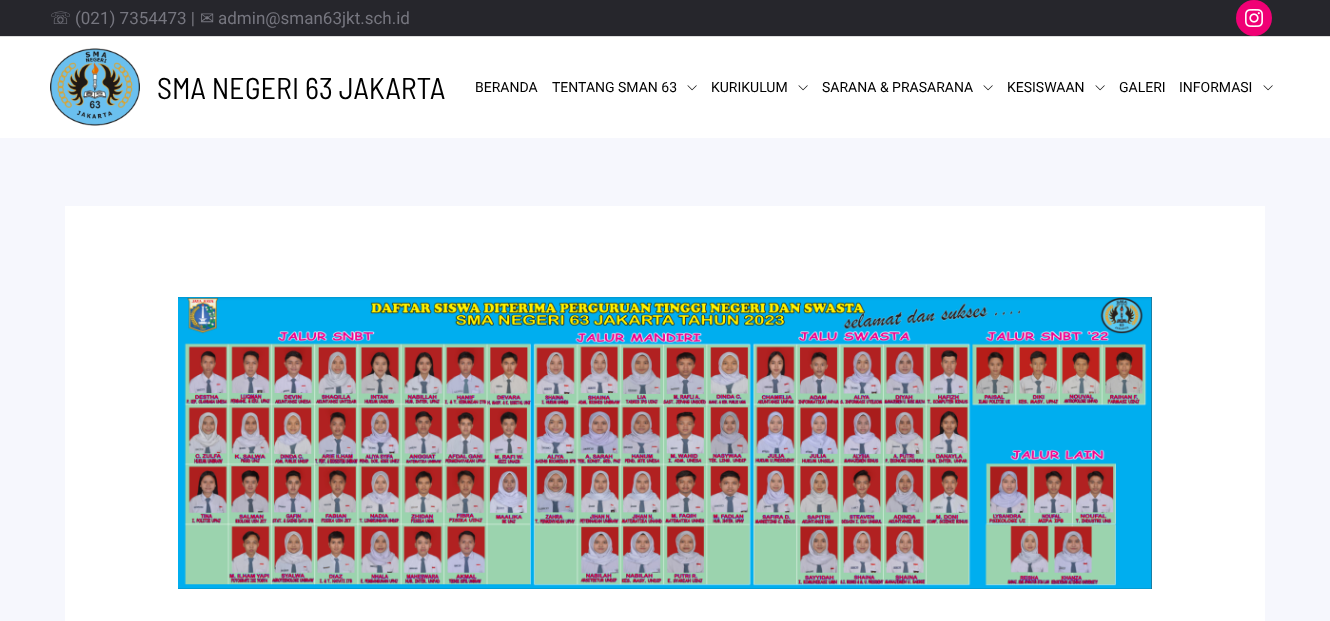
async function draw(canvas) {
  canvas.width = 1330;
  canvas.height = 621;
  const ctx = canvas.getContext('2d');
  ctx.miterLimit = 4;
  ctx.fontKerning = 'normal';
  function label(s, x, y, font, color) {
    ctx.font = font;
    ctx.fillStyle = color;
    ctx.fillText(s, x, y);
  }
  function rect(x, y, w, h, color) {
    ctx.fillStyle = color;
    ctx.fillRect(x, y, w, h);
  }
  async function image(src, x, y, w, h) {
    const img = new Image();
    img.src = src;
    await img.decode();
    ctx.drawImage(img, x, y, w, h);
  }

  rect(0, 0, 1330, 621, '#f6f7fd');
  rect(0, 0, 1330, 36, '#26262c');
  rect(0, 36, 1330, 1, '#ddd');
  label('☏', 50, 24, '17px DejaVu Sans', '#76767f');
  label('(021) 7354473 |', 75, 24, '17px Roboto', '#76767f');
  label('✉', 200, 24, '17px DejaVu Sans', '#76767f');
  label('admin@sman63jkt.sch.id', 218, 24, '17px Roboto', '#76767f');
  ctx.fillStyle = '#f00075';
  ctx.beginPath();
  ctx.arc(1254, 18, 18, 0, 2 * Math.PI);
  ctx.fill();
  await image('assets/img1.png', 1245, 9, 18, 18);
  rect(0, 37, 1330, 101, '#fff');
  await image('assets/img2.png', 50, 48, 90, 78);
  label('SMA NEGERI 63 JAKARTA', 157, 99, '30px Barlow Semi Condensed', '#000');
  label('BERANDA', 475, 92, '14px Roboto', '#000');
  label('TENTANG SMAN 63', 552, 92, '14px Roboto', '#000');
  await image('assets/img3.png', 687, 85, 10, 6);
  label('KURIKULUM', 711, 92, '14px Roboto', '#000');
  await image('assets/img3.png', 798, 85, 10, 6);
  label('SARANA & PRASARANA', 822, 92, '14px Roboto', '#000');
  await image('assets/img3.png', 983, 85, 10, 6);
  label('KESISWAAN', 1007, 92, '14px Roboto', '#000');
  await image('assets/img3.png', 1095, 85, 10, 6);
  label('GALERI', 1119, 92, '14px Roboto', '#000');
  label('INFORMASI', 1179, 92, '14px Roboto', '#000');
  await image('assets/img3.png', 1263, 85, 10, 6);
  rect(65, 206, 1200, 415, '#fff');
  await image('assets/img4.png', 178, 297, 974, 292);
}

draw(document.querySelector('canvas'));
